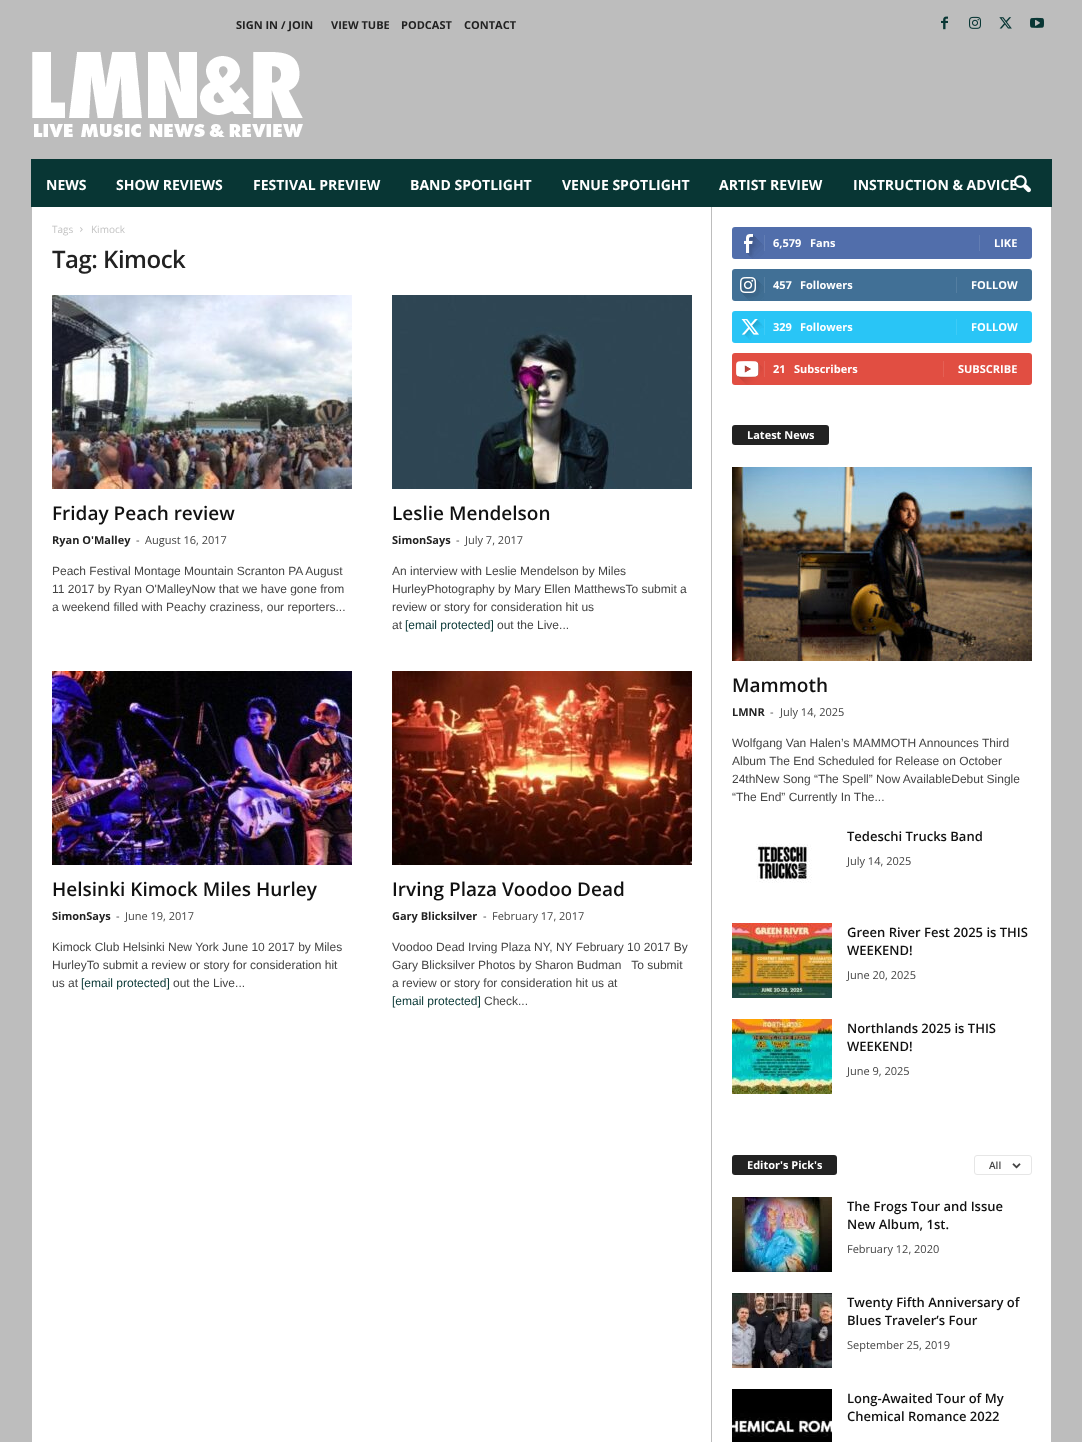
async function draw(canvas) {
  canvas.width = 1082;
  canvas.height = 1442;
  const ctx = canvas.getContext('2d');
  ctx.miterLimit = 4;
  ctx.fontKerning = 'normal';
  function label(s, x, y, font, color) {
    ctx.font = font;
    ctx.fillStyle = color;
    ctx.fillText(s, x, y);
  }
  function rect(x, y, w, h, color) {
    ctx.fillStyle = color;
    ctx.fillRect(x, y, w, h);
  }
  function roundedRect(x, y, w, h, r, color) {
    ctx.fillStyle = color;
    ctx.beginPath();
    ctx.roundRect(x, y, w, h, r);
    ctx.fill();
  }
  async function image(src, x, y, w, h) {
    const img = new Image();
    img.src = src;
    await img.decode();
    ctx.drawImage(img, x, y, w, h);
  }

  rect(0, 0, 1082, 1442, '#bdbdbd');
  label('SIGN IN / JOIN', 236, 29, 'bold 11px Open Sans', '#222');
  label('VIEW TUBE', 331, 29, 'bold 11px Open Sans', '#222');
  label('PODCAST', 401, 29, 'bold 11px Open Sans', '#222');
  label('CONTACT', 464, 29, 'bold 11px Open Sans', '#222');
  await image('assets/img1.png', 941, 16, 7, 14);
  await image('assets/img2.png', 969, 16, 12, 13);
  await image('assets/img3.png', 999, 17, 13, 12);
  await image('assets/img4.png', 1030, 17, 14, 11);
  await image('assets/img5.png', 32, 52, 271, 85);
  rect(31, 159, 1021, 48, '#083634');
  label('NEWS', 46, 190, 'bold 14px Open Sans', '#fff');
  label('SHOW REVIEWS', 116, 190, 'bold 14px Open Sans', '#fff');
  label('FESTIVAL PREVIEW', 253, 190, 'bold 14px Open Sans', '#fff');
  label('BAND SPOTLIGHT', 410, 190, 'bold 14px Open Sans', '#fff');
  label('VENUE SPOTLIGHT', 562, 190, 'bold 14px Open Sans', '#fff');
  label('ARTIST REVIEW', 719, 190, 'bold 14px Open Sans', '#fff');
  label('INSTRUCTION & ADVICE', 853, 190, 'bold 14px Open Sans', '#fff');
  await image('assets/img6.png', 1014, 175, 17, 18);
  rect(32, 207, 1019, 1235, '#fff');
  label('Tags', 52, 233, '10px Open Sans', '#c3c3c3');
  await image('assets/img7.png', 80, 227, 3, 5);
  label('Kimock', 91, 233, '10px Open Sans', '#c3c3c3');
  ctx.letterSpacing = '-0.5px';
  label('Tag: Kimock', 52, 268, '600 24px Open Sans', '#222');
  await image('assets/img8.png', 52, 295, 300, 194);
  ctx.letterSpacing = '0px';
  label('Friday Peach review', 52, 520, '600 19px Open Sans', '#111');
  label('Ryan O\'Malley', 52, 544, 'bold 11px Open Sans', '#222');
  label('-', 136, 544, '11px Open Sans', '#444');
  label('August 16, 2017', 145, 544, '11px Open Sans', '#444');
  label('Peach Festival Montage Mountain Scranton PA August', 52, 575, '12px Liberation Sans', '#444');
  label('11 2017 by Ryan O\'MalleyNow that we have gone from', 52, 593, '12px Liberation Sans', '#444');
  label('a weekend filled with Peachy craziness, our reporters...', 52, 611, '12px Liberation Sans', '#444');
  await image('assets/img9.png', 392, 295, 300, 194);
  label('Leslie Mendelson', 392, 520, '600 19px Open Sans', '#111');
  label('SimonSays', 392, 544, 'bold 11px Open Sans', '#222');
  label('-', 456, 544, '11px Open Sans', '#444');
  label('July 7, 2017', 465, 544, '11px Open Sans', '#444');
  label('An interview with Leslie Mendelson by Miles', 392, 575, '12px Liberation Sans', '#444');
  label('HurleyPhotography by Mary Ellen MatthewsTo submit a', 392, 593, '12px Liberation Sans', '#444');
  label('review or story for consideration hit us', 392, 611, '12px Liberation Sans', '#444');
  label('at', 392, 629, '12px Liberation Sans', '#444');
  label('[email protected]', 405, 629, '12px Liberation Sans', '#083634');
  label('out the Live...', 497, 629, '12px Liberation Sans', '#444');
  await image('assets/img10.png', 52, 671, 300, 194);
  label('Helsinki Kimock Miles Hurley', 52, 896, '600 19px Open Sans', '#111');
  label('SimonSays', 52, 920, 'bold 11px Open Sans', '#222');
  label('-', 116, 920, '11px Open Sans', '#444');
  label('June 19, 2017', 125, 920, '11px Open Sans', '#444');
  label('Kimock Club Helsinki New York June 10 2017 by Miles', 52, 951, '12px Liberation Sans', '#444');
  label('HurleyTo submit a review or story for consideration hit', 52, 969, '12px Liberation Sans', '#444');
  label('us at', 52, 987, '12px Liberation Sans', '#444');
  label('[email protected]', 81, 987, '12px Liberation Sans', '#083634');
  label('out the Live...', 173, 987, '12px Liberation Sans', '#444');
  await image('assets/img11.png', 392, 671, 300, 194);
  label('Irving Plaza Voodoo Dead', 392, 896, '600 19px Open Sans', '#111');
  label('Gary Blicksilver', 392, 920, 'bold 11px Open Sans', '#222');
  label('-', 483, 920, '11px Open Sans', '#444');
  label('February 17, 2017', 492, 920, '11px Open Sans', '#444');
  label('Voodoo Dead Irving Plaza NY, NY February 10 2017 By', 392, 951, '12px Liberation Sans', '#444');
  label('Gary Blicksilver Photos by Sharon Budman   To submit', 392, 969, '12px Liberation Sans', '#444');
  label('a review or story for consideration hit us at', 392, 987, '12px Liberation Sans', '#444');
  label('[email protected]', 392, 1005, '12px Liberation Sans', '#083634');
  label('Check...', 484, 1005, '12px Liberation Sans', '#444');
  rect(711, 207, 1, 1235, '#bdbdbd');
  roundedRect(732, 227, 300, 32, 3, '#516eab');
  await image('assets/img12.png', 744, 234, 20, 25);
  rect(764, 235, 1, 16, '#627db3');
  label('6,579', 773, 247, 'bold 11px Open Sans', '#fff');
  label('Fans', 810, 247, 'bold 11px Open Sans', '#fff');
  rect(979, 235, 1, 16, '#627db3');
  label('LIKE', 994, 247, 'bold 11px Open Sans', '#fff');
  roundedRect(732, 269, 300, 32, 3, '#417096');
  await image('assets/img13.png', 740, 277, 24, 24);
  rect(764, 277, 1, 16, '#547ea1');
  label('457', 773, 289, 'bold 11px Open Sans', '#fff');
  label('Followers', 800, 289, 'bold 11px Open Sans', '#fff');
  rect(956, 277, 1, 16, '#547ea1');
  label('FOLLOW', 971, 289, 'bold 11px Open Sans', '#fff');
  roundedRect(732, 311, 300, 32, 3, '#29c5f6');
  await image('assets/img14.png', 741, 319, 23, 21);
  rect(764, 319, 1, 16, '#3ecbf7');
  label('329', 773, 331, 'bold 11px Open Sans', '#fff');
  label('Followers', 800, 331, 'bold 11px Open Sans', '#fff');
  rect(956, 319, 1, 16, '#3ecbf7');
  label('FOLLOW', 971, 331, 'bold 11px Open Sans', '#fff');
  roundedRect(732, 353, 300, 32, 3, '#e14e42');
  await image('assets/img15.png', 736, 361, 27, 24);
  rect(764, 361, 1, 16, '#e46055');
  label('21', 773, 373, 'bold 11px Open Sans', '#fff');
  label('Subscribers', 794, 373, 'bold 11px Open Sans', '#fff');
  rect(943, 361, 1, 16, '#e46055');
  label('SUBSCRIBE', 958, 373, 'bold 11px Open Sans', '#fff');
  roundedRect(732, 425, 97, 20, 3, '#222');
  label('Latest News', 747, 439, 'bold 11px Open Sans', '#fff');
  await image('assets/img16.png', 732, 467, 300, 194);
  label('Mammoth', 732, 692, '600 19px Open Sans', '#111');
  label('LMNR', 732, 716, 'bold 11px Open Sans', '#222');
  label('-', 770, 716, '11px Open Sans', '#444');
  label('July 14, 2025', 780, 716, '11px Open Sans', '#444');
  label('Wolfgang Van Halen’s MAMMOTH Announces Third', 732, 747, '12px Liberation Sans', '#444');
  label('Album The End Scheduled for Release on October', 732, 765, '12px Liberation Sans', '#444');
  label('24thNew Song “The Spell” Now AvailableDebut Single', 732, 783, '12px Liberation Sans', '#444');
  label('“The End” Currently In The...', 732, 801, '12px Liberation Sans', '#444');
  await image('assets/img17.png', 756, 843, 56, 40);
  label('Tedeschi Trucks Band', 847, 841, '600 13px Open Sans', '#111');
  label('July 14, 2025', 847, 865, '11px Open Sans', '#444');
  await image('assets/img18.png', 732, 923, 100, 75);
  label('Green River Fest 2025 is THIS', 847, 937, '600 13px Open Sans', '#111');
  label('WEEKEND!', 847, 955, '600 13px Open Sans', '#111');
  label('June 20, 2025', 847, 979, '11px Open Sans', '#444');
  await image('assets/img19.png', 732, 1019, 100, 75);
  label('Northlands 2025 is THIS', 847, 1033, '600 13px Open Sans', '#111');
  label('WEEKEND!', 847, 1051, '600 13px Open Sans', '#111');
  label('June 9, 2025', 847, 1075, '11px Open Sans', '#444');
  roundedRect(732, 1155, 105, 20, 3, '#222');
  label('Editor\'s Pick\'s', 747, 1169, 'bold 11px Open Sans', '#fff');
  ctx.beginPath();
  ctx.roundRect(974.5, 1155.5, 57, 19, 2.5);
  ctx.strokeStyle = '#e6e6e6';
  ctx.stroke();
  label('All', 989, 1169, '600 10px Open Sans', '#444');
  await image('assets/img20.png', 1012, 1163, 9, 6);
  await image('assets/img21.png', 732, 1197, 100, 75);
  label('The Frogs Tour and Issue', 847, 1211, '600 13px Open Sans', '#111');
  label('New Album, 1st.', 847, 1229, '600 13px Open Sans', '#111');
  label('February 12, 2020', 847, 1253, '11px Open Sans', '#444');
  await image('assets/img22.png', 732, 1293, 100, 75);
  label('Twenty Fifth Anniversary of', 847, 1307, '600 13px Open Sans', '#111');
  label('Blues Traveler’s Four', 847, 1325, '600 13px Open Sans', '#111');
  label('September 25, 2019', 847, 1349, '11px Open Sans', '#444');
  await image('assets/img23.png', 732, 1389, 100, 53);
  label('Long-Awaited Tour of My', 847, 1403, '600 13px Open Sans', '#111');
  label('Chemical Romance 2022', 847, 1421, '600 13px Open Sans', '#111');
}

draw(document.querySelector('canvas'));
